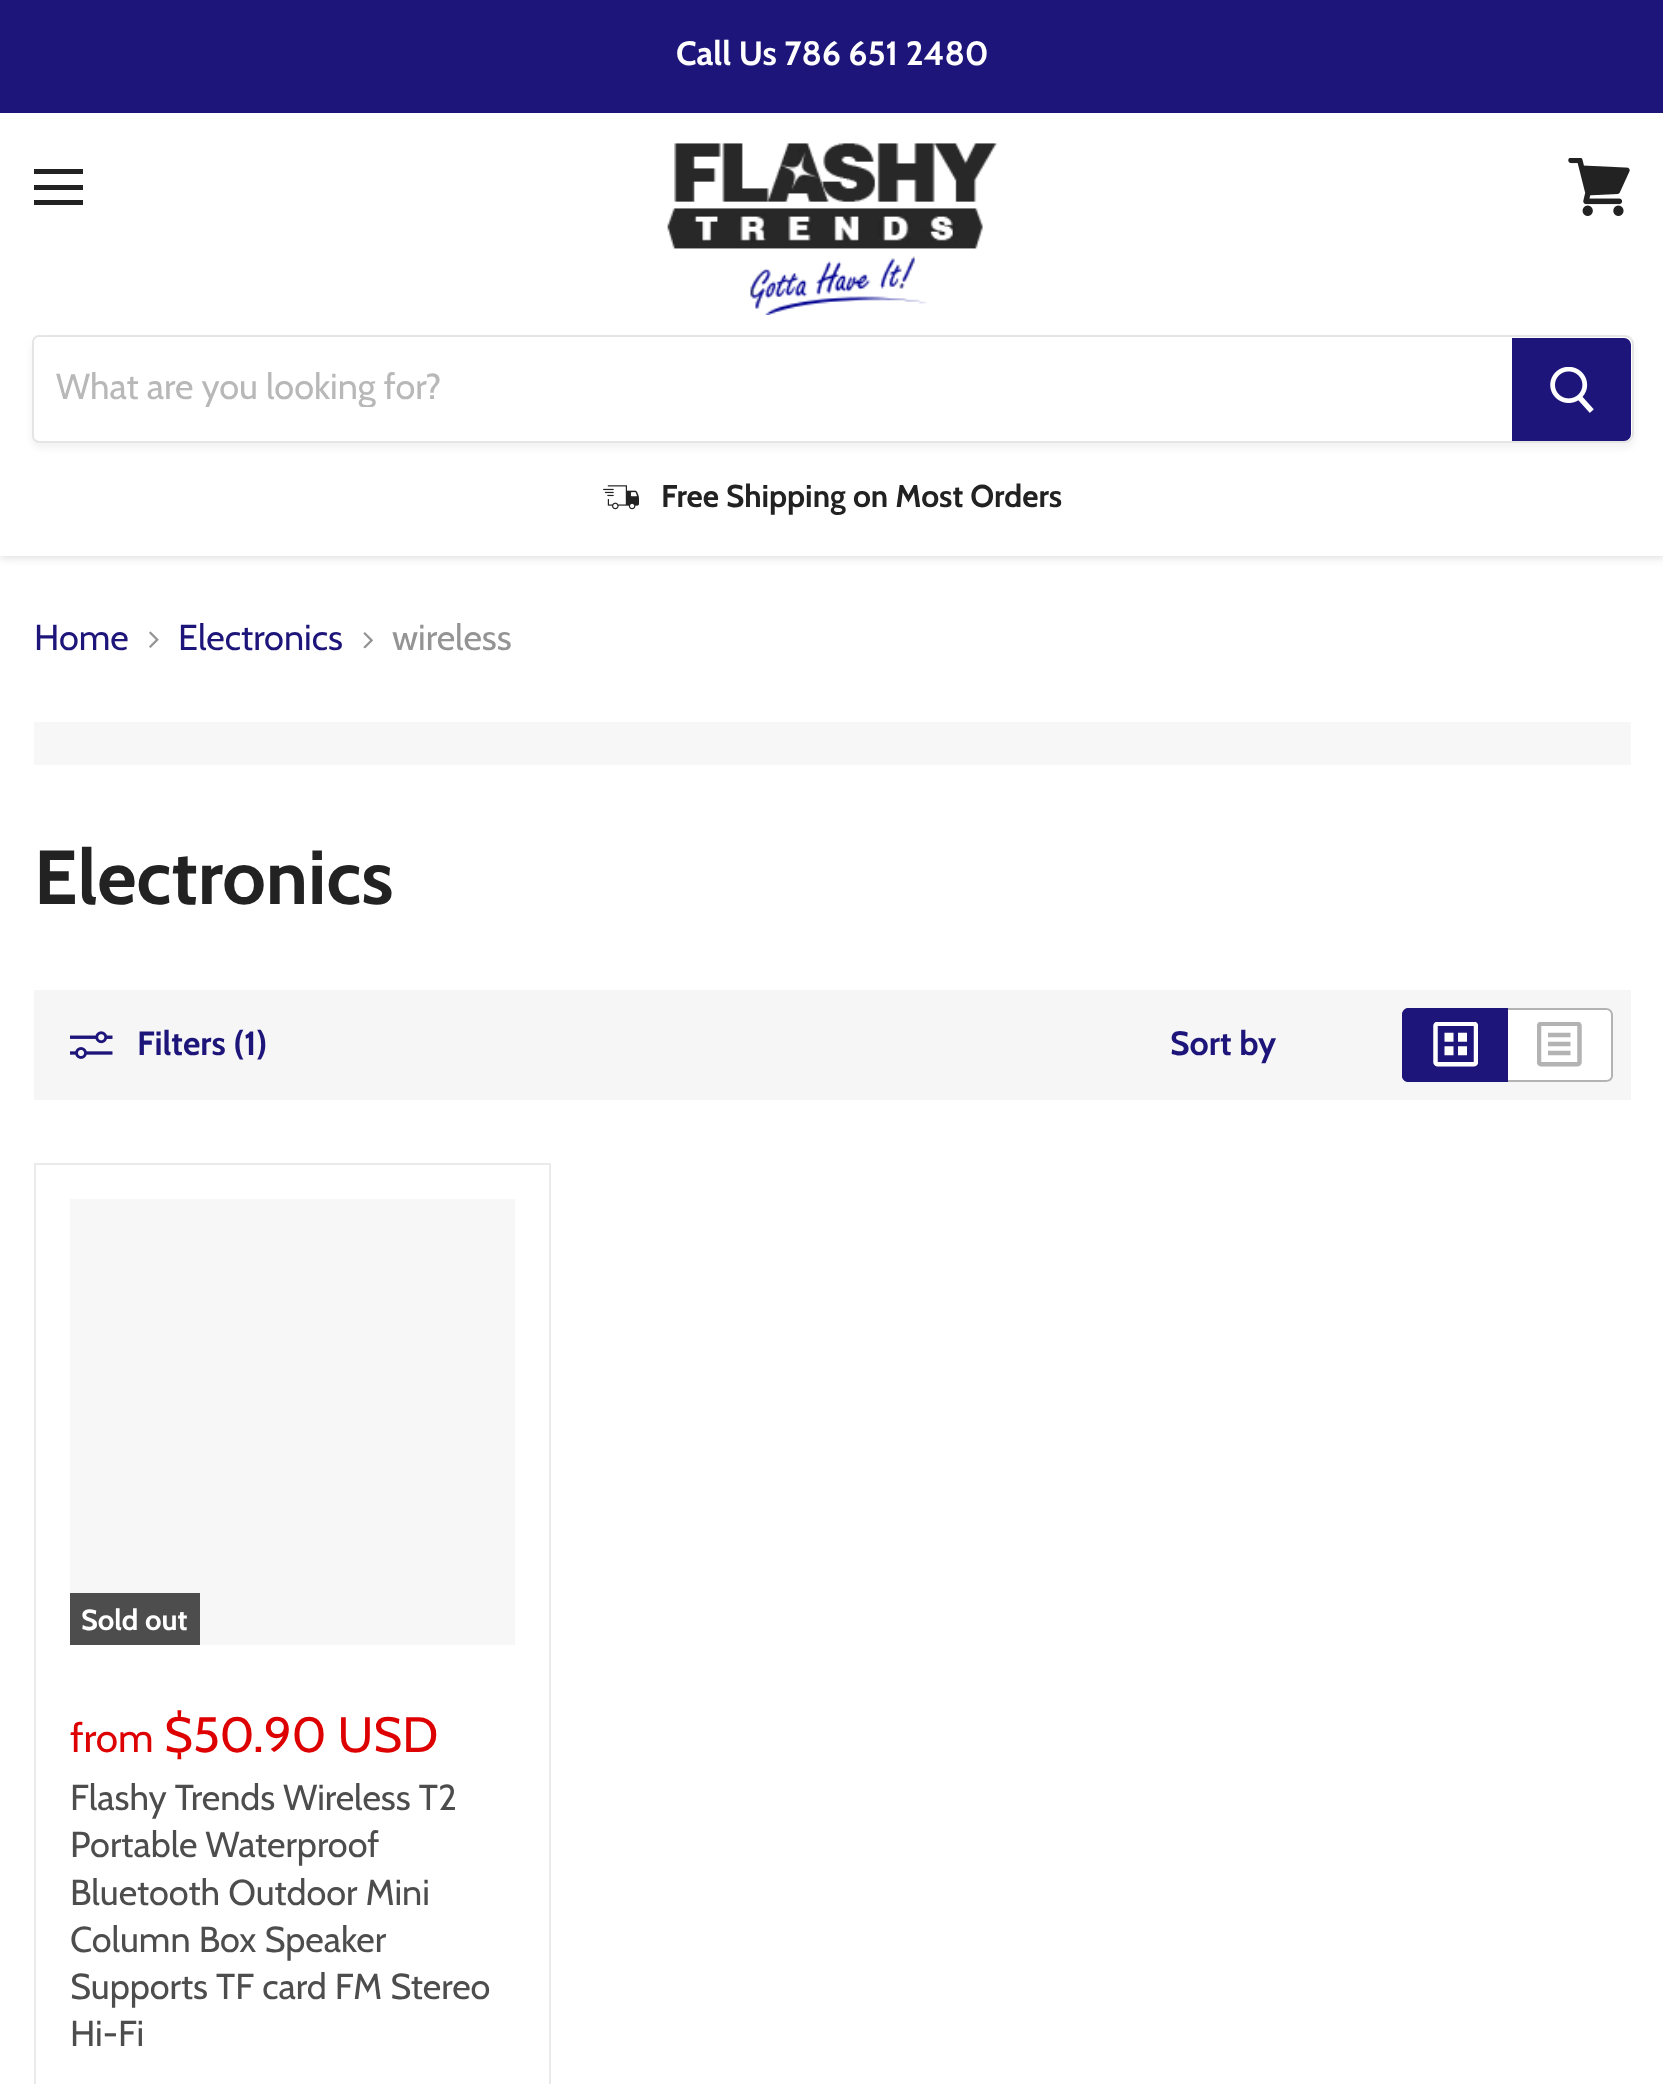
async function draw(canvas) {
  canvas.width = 1663;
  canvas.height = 2084;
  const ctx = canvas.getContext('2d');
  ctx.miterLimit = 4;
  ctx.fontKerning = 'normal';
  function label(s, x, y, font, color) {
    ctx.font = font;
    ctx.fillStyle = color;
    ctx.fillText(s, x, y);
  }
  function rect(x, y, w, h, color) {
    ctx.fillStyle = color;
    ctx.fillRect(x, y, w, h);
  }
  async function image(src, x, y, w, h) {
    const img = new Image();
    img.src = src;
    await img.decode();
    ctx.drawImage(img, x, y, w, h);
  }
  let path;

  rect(0, 0, 1663, 2084, '#fff');
  ctx.fillStyle = '#7f7f7f40';
  ctx.filter = 'blur(4.5px)';
  ctx.beginPath();
  ctx.rect(0, 2, 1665, 556);
  ctx.fill();
  ctx.filter = 'none';
  rect(0, 113, 1663, 443, '#fff');
  rect(0, 0, 1663, 113, '#1d157a');
  label('Call Us 786 651 2480', 676, 65, 'bold 33.75px Cabin', '#fff');
  rect(34, 169, 49, 5, '#222');
  rect(34, 185, 49, 5, '#222');
  rect(34, 200, 49, 5, '#222');
  await image('assets/img1.png', 1568, 158, 62, 58);
  await image('assets/img2.png', 667, 143, 331, 172);
  ctx.save();
  path = new Path2D('M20 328H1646V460H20ZM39 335H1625C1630 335 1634 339 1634 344V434C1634 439 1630 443 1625 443H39C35 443 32 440 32 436V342C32 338 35 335 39 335Z');
  ctx.clip(path, 'evenodd');
  ctx.fillStyle = '#7f7f7f1c';
  ctx.filter = 'blur(3.5px)';
  ctx.beginPath();
  ctx.roundRect(32, 340, 1602, 108, 9);
  ctx.fill();
  ctx.filter = 'none';
  ctx.restore();
  ctx.beginPath();
  ctx.roundRect(33, 336, 1600, 106, [6, 8, 8, 6]);
  ctx.strokeStyle = '#7f7f7f33';
  ctx.lineWidth = 2;
  ctx.stroke();
  ctx.save();
  ctx.beginPath();
  ctx.rect(56, 365, 1434, 42);
  ctx.clip();
  label('What are you looking for?', 56, 399, '36px Cabin', '#b8b8b8');
  ctx.restore();
  ctx.fillStyle = '#1d157a';
  ctx.beginPath();
  ctx.roundRect(1513, 339, 117, 101, [0, 6, 6, 0]);
  ctx.fill();
  ctx.strokeStyle = '#1d157a';
  ctx.stroke();
  await image('assets/img3.png', 1550, 367, 44, 46);
  await image('assets/img4.png', 603, 485, 36, 25);
  label('Free Shipping on Most Orders', 661, 507, 'bold 31.5px Cabin', '#222');
  label('Home', 34, 650, '36px Cabin', '#1d157a');
  await image('assets/img5.png', 149, 631, 10, 17);
  label('Electronics', 178, 650, '36px Cabin', '#1d157a');
  await image('assets/img6.png', 363, 632, 10, 17);
  label('wireless', 392, 650, '36px Cabin', '#949494');
  rect(34, 722, 1597, 43, '#f7f7f7');
  label('Electronics', 34, 904, 'bold 76.5px Cabin', '#222');
  rect(34, 990, 1597, 110, '#f6f6f6');
  await image('assets/img7.png', 70, 1031, 43, 28);
  label('Filters (1)', 137, 1055, 'bold 33.75px Cabin', '#1d157a');
  label('Sort by', 1170, 1055, 'bold 33.75px Cabin', '#1d157a');
  ctx.beginPath();
  ctx.roundRect(1402, 1008, 106, 74, [7, 0, 0, 7]);
  ctx.fill();
  path = new Path2D('M1408 1008H1508V1082H1408C1405 1082 1402 1079 1402 1076V1015C1402 1011 1405 1008 1408 1008ZM1408 1010H1508V1080H1408C1406 1080 1404 1078 1404 1076V1015C1404 1012 1406 1010 1408 1010Z');
  ctx.fill(path, 'evenodd');
  await image('assets/img8.png', 1433, 1022, 45, 45);
  ctx.fillStyle = '#fff';
  ctx.beginPath();
  ctx.roundRect(1508, 1008, 105, 74, [0, 7, 7, 0]);
  ctx.fill();
  ctx.fillStyle = '#b3b3b3';
  path = new Path2D('M1508 1008H1606C1610 1008 1613 1011 1613 1015V1076C1613 1079 1610 1082 1606 1082H1508ZM1508 1010H1606C1609 1010 1611 1012 1611 1015V1076C1611 1078 1609 1080 1606 1080H1508Z');
  ctx.fill(path, 'evenodd');
  await image('assets/img9.png', 1537, 1022, 45, 45);
  ctx.strokeStyle = '#eaeaea';
  ctx.strokeRect(35, 1164, 515, 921);
  rect(70, 1199, 445, 446, '#f7f7f7');
  rect(70, 1593, 130, 52, '#4d4d4d');
  label('Sold out', 81, 1630, 'bold 29px Cabin', '#fff');
  label('from', 70, 1752, '40.5px Cabin', '#de0101');
  label('$50.90 USD', 164, 1752, '49.5px Cabin', '#de0101');
  label('Flashy Trends Wireless T2', 70, 1810, '36px Cabin', '#4d4d4d');
  label('Portable Waterproof', 70, 1857, '36px Cabin', '#4d4d4d');
  label('Bluetooth Outdoor Mini', 70, 1905, '36px Cabin', '#4d4d4d');
  label('Column Box Speaker', 70, 1952, '36px Cabin', '#4d4d4d');
  label('Supports TF card FM Stereo', 70, 1999, '36px Cabin', '#4d4d4d');
  label('Hi-Fi', 70, 2046, '36px Cabin', '#4d4d4d');
}

draw(document.querySelector('canvas'));
